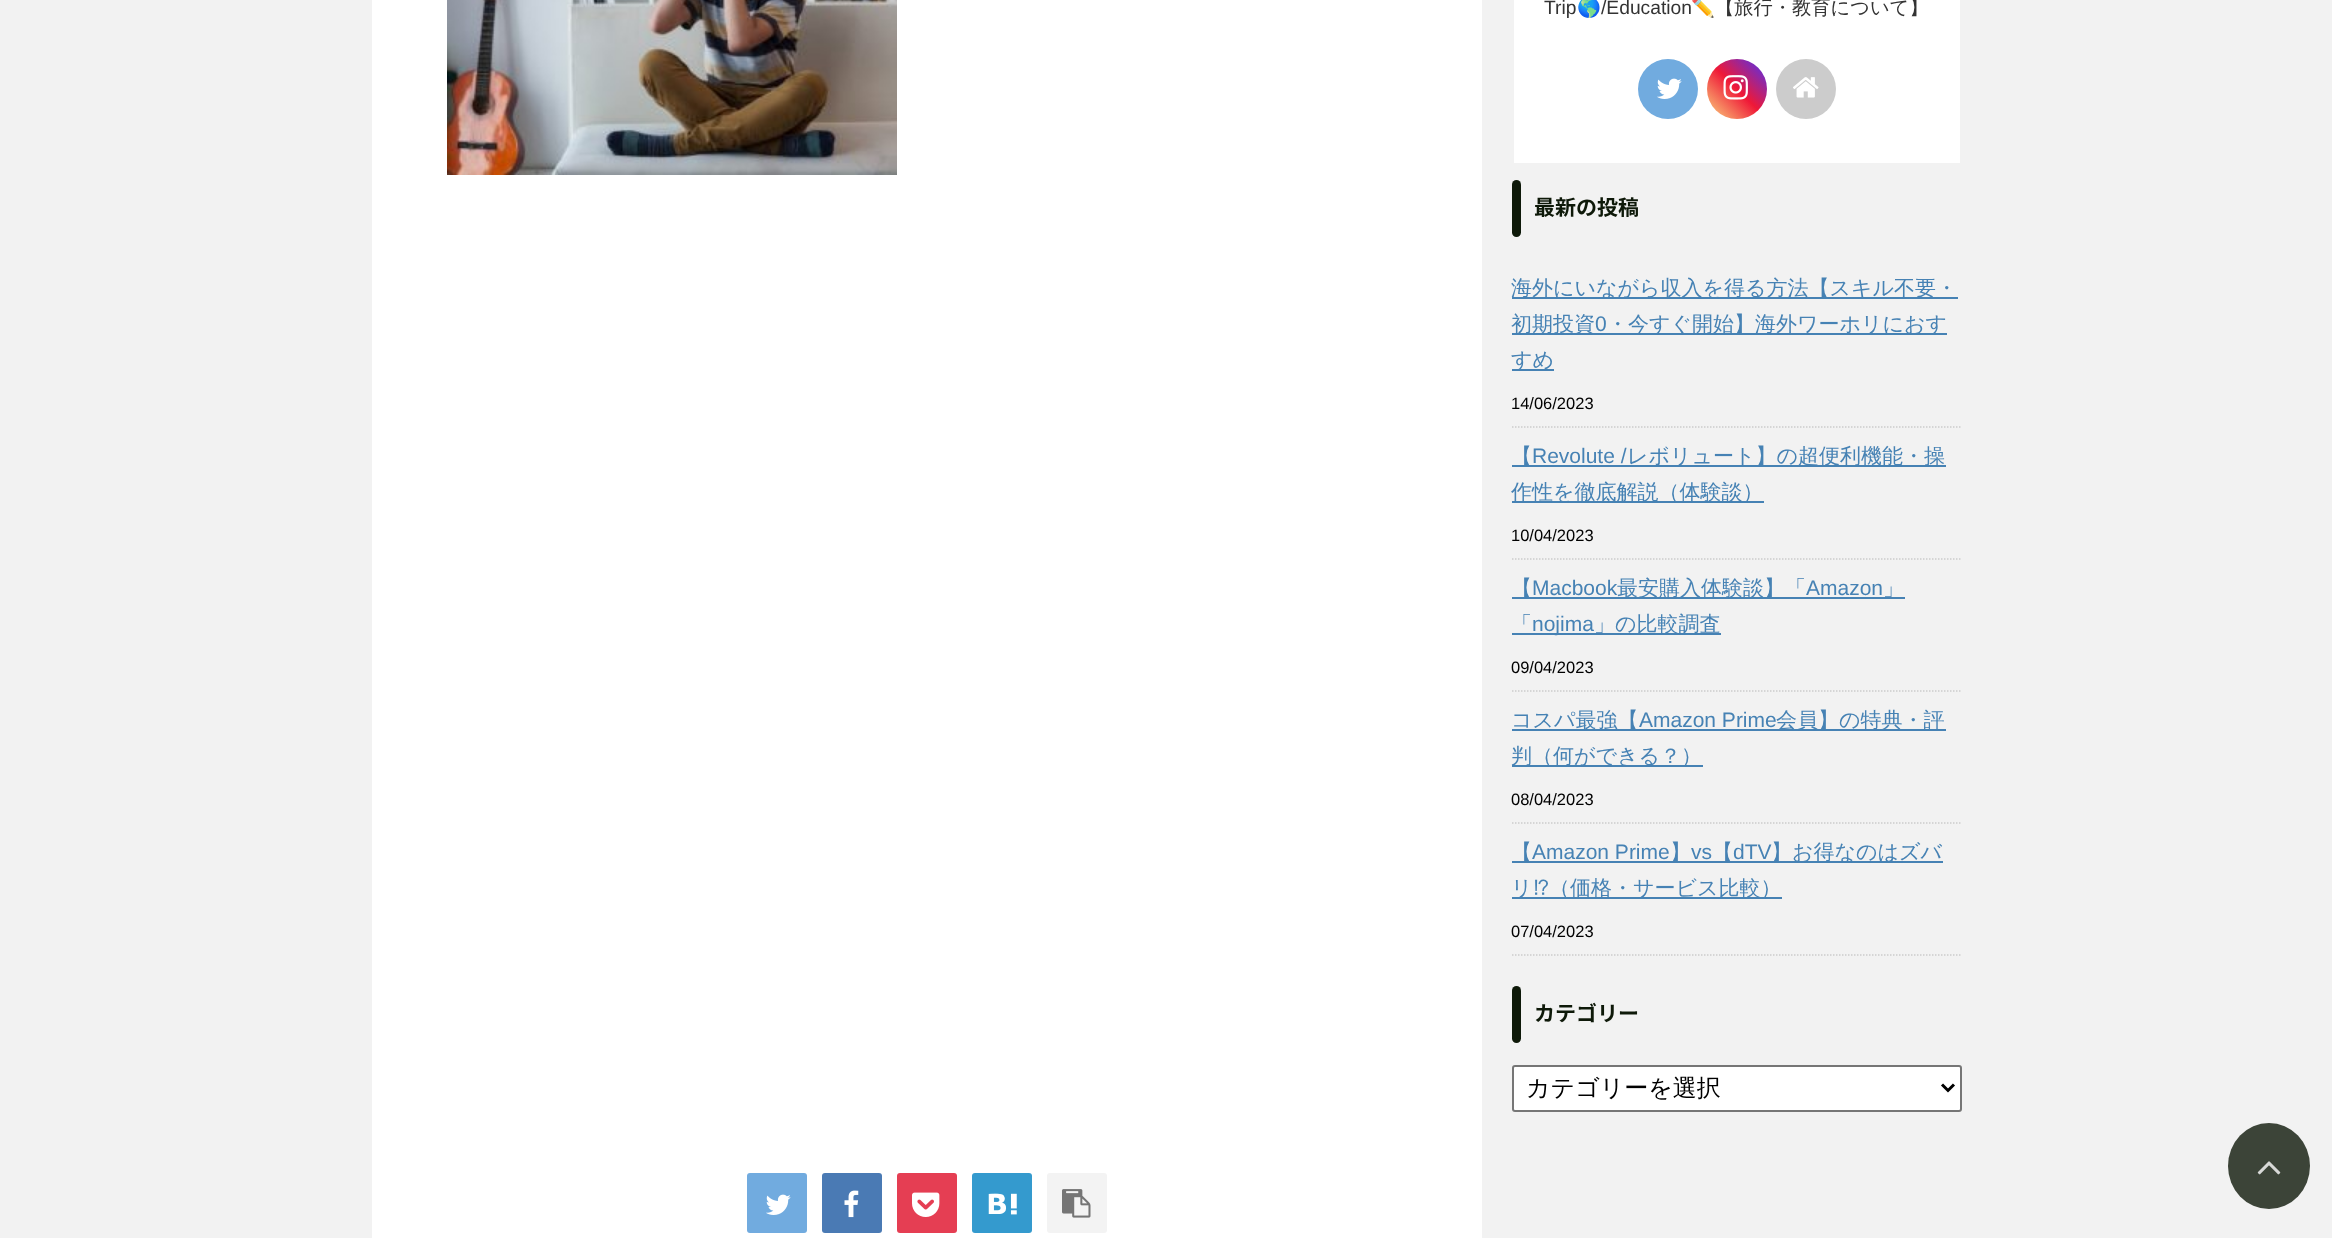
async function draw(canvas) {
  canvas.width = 2332;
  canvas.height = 1238;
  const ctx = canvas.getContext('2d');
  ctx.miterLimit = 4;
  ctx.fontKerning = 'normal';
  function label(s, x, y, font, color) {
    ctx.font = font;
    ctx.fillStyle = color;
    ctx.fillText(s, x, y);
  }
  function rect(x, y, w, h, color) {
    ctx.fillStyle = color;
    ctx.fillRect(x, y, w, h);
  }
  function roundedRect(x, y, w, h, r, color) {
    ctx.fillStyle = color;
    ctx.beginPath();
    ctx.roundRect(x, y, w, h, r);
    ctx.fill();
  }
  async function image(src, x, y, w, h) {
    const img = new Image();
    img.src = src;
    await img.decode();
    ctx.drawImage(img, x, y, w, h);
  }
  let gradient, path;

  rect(0, 0, 2332, 1238, '#f2f2f2');
  rect(372, 0, 1110, 1238, '#fff');
  await image('assets/img1.png', 447, 0, 450, 175);
  roundedRect(747, 1173, 60, 60, 3, '#71abdf');
  await image('assets/img2.png', 766, 1194, 25, 21);
  roundedRect(822, 1173, 60, 60, 3, '#4a7ab4');
  await image('assets/img3.png', 844, 1190, 15, 28);
  roundedRect(897, 1173, 60, 60, 3, '#e53e53');
  await image('assets/img4.png', 912, 1192, 28, 25);
  roundedRect(972, 1173, 60, 60, 3, '#349ace');
  await image('assets/img5.png', 988, 1193, 29, 22);
  roundedRect(1047, 1173, 60, 60, 3, '#f3f3f3');
  await image('assets/img6.png', 1062, 1189, 29, 29);
  rect(1514, 0, 446, 163, '#fff');
  label('Trip', 1544, 14, '19.25px Liberation Sans', '#333');
  label('🌎', 1577, 14, '19.25px Noto Color Emoji', '#333');
  label('/Education', 1601, 14, '19.25px Liberation Sans', '#333');
  label('✏️', 1691, 14, '19.25px Noto Color Emoji', '#333');
  label('【旅行・教育について】', 1715, 14, '500 19.25px WenQuanYi Zen Hei', '#333');
  ctx.fillStyle = '#71abdf';
  ctx.beginPath();
  ctx.arc(1668, 89, 30, 0, 2 * Math.PI);
  ctx.fill();
  await image('assets/img2.png', 1657, 78, 25, 21);
  gradient = ctx.createLinearGradient(1767, 59, 1707, 119);
  gradient.addColorStop(0, '#4933f7');
  gradient.addColorStop(0.5, '#ef1837');
  gradient.addColorStop(1, '#fbd980');
  ctx.fillStyle = gradient;
  ctx.beginPath();
  ctx.arc(1737, 89, 30, 0, 2 * Math.PI);
  ctx.fill();
  await image('assets/img7.png', 1723, 75, 25, 25);
  ctx.fillStyle = '#ccc';
  ctx.beginPath();
  ctx.arc(1806, 89, 30, 0, 2 * Math.PI);
  ctx.fill();
  await image('assets/img8.png', 1793, 77, 26, 21);
  roundedRect(1512, 180, 9, 57, 4.5, '#0e1909');
  label('最新の投稿', 1534, 215, 'bold 21px Noto Sans JP', '#0e1909');
  path = new Path2D('M1512 427H1962');
  ctx.strokeStyle = '#ccc';
  ctx.lineWidth = 1.5;
  ctx.setLineDash([1.5, 1.5]);
  ctx.stroke(path);
  rect(1512, 297, 446, 2, '#4682b4');
  label('海外にいながら収入を得る方法【スキル不要・', 1511, 295, '500 21px WenQuanYi Zen Hei', '#4682b4');
  rect(1512, 333, 435, 2, '#4682b4');
  label('初期投資', 1511, 331, '500 21px WenQuanYi Zen Hei', '#4682b4');
  label('0', 1595, 331, '21px Liberation Sans', '#4682b4');
  label('・今すぐ開始】海外ワーホリにおす', 1607, 331, '500 21px WenQuanYi Zen Hei', '#4682b4');
  rect(1512, 369, 42, 2, '#4682b4');
  label('すめ', 1511, 367, '500 21px WenQuanYi Zen Hei', '#4682b4');
  label('14/06/2023', 1511, 409, '16.5px Liberation Sans', '#000');
  path = new Path2D('M1512 559H1962');
  ctx.stroke(path);
  rect(1512, 465, 434, 2, '#4682b4');
  label('【', 1511, 463, '500 21px WenQuanYi Zen Hei', '#4682b4');
  label('Revolute /', 1532, 463, '21px Liberation Sans', '#4682b4');
  label('レボリュート】の超便利機能・操', 1627, 463, '500 21px WenQuanYi Zen Hei', '#4682b4');
  rect(1512, 501, 252, 2, '#4682b4');
  label('作性を徹底解説（体験談）', 1511, 499, '500 21px WenQuanYi Zen Hei', '#4682b4');
  label('10/04/2023', 1511, 541, '16.5px Liberation Sans', '#000');
  path = new Path2D('M1512 691H1962');
  ctx.stroke(path);
  rect(1512, 597, 393, 2, '#4682b4');
  label('【', 1511, 595, '500 21px WenQuanYi Zen Hei', '#4682b4');
  label('Macbook', 1532, 595, '21px Liberation Sans', '#4682b4');
  label('最安購入体験談】「', 1617, 595, '500 21px WenQuanYi Zen Hei', '#4682b4');
  label('Amazon', 1806, 595, '21px Liberation Sans', '#4682b4');
  label('」', 1883, 595, '500 21px WenQuanYi Zen Hei', '#4682b4');
  label('「', 1511, 631, '500 21px WenQuanYi Zen Hei', '#4682b4');
  rect(1512, 633, 209, 2, '#4682b4');
  label('nojima', 1532, 631, '21px Liberation Sans', '#4682b4');
  label('」の比較調査', 1594, 631, '500 21px WenQuanYi Zen Hei', '#4682b4');
  label('09/04/2023', 1511, 673, '16.5px Liberation Sans', '#000');
  path = new Path2D('M1512 823H1962');
  ctx.stroke(path);
  rect(1512, 729, 434, 2, '#4682b4');
  label('コスパ最強【', 1511, 727, '500 21px WenQuanYi Zen Hei', '#4682b4');
  label('Amazon Prime', 1639, 727, '21px Liberation Sans', '#4682b4');
  label('会員】の特典・評', 1776, 727, '500 21px WenQuanYi Zen Hei', '#4682b4');
  rect(1512, 765, 191, 2, '#4682b4');
  label('判（何ができる？）', 1511, 763, '500 21px WenQuanYi Zen Hei', '#4682b4');
  label('08/04/2023', 1511, 805, '16.5px Liberation Sans', '#000');
  path = new Path2D('M1512 955H1962');
  ctx.stroke(path);
  rect(1512, 861, 431, 2, '#4682b4');
  label('【', 1511, 859, '500 21px WenQuanYi Zen Hei', '#4682b4');
  label('Amazon Prime', 1532, 859, '21px Liberation Sans', '#4682b4');
  label('】', 1670, 859, '500 21px WenQuanYi Zen Hei', '#4682b4');
  label('vs', 1691, 859, '21px Liberation Sans', '#4682b4');
  label('【', 1712, 859, '500 21px WenQuanYi Zen Hei', '#4682b4');
  label('dTV', 1733, 859, '21px Liberation Sans', '#4682b4');
  label('】お得なのはズバ', 1771, 859, '500 21px WenQuanYi Zen Hei', '#4682b4');
  rect(1512, 897, 270, 2, '#4682b4');
  label('リ', 1511, 895, '500 21px WenQuanYi Zen Hei', '#4682b4');
  label('⁉︎', 1533, 895, '21px IPAPGothic', '#4682b4');
  label('（価格・サービス比較）', 1549, 895, '500 21px WenQuanYi Zen Hei', '#4682b4');
  label('07/04/2023', 1511, 937, '16.5px Liberation Sans', '#000');
  roundedRect(1512, 986, 9, 57, 4.5, '#0e1909');
  label('カテゴリー', 1534, 1021, 'bold 21px Noto Sans JP', '#0e1909');
  ctx.fillStyle = '#fff';
  ctx.beginPath();
  ctx.roundRect(1513, 1066, 448, 45, 2);
  ctx.fill();
  ctx.strokeStyle = '#767676';
  ctx.lineWidth = 2;
  ctx.setLineDash([]);
  ctx.stroke();
  path = new Path2D('M1942 1084.5L1948 1090.5L1954 1084.5');
  ctx.strokeStyle = '#000';
  ctx.lineWidth = 3;
  ctx.stroke(path);
  label('カテゴリーを選択', 1526, 1096, '500 24px WenQuanYi Zen Hei', '#000');
  ctx.fillStyle = '#3c4438';
  ctx.beginPath();
  ctx.ellipse(2269, 1166, 41, 43, 0, 0, 2 * Math.PI);
  ctx.fill();
  await image('assets/img9.png', 2257, 1161, 24, 14);
}

draw(document.querySelector('canvas'));
